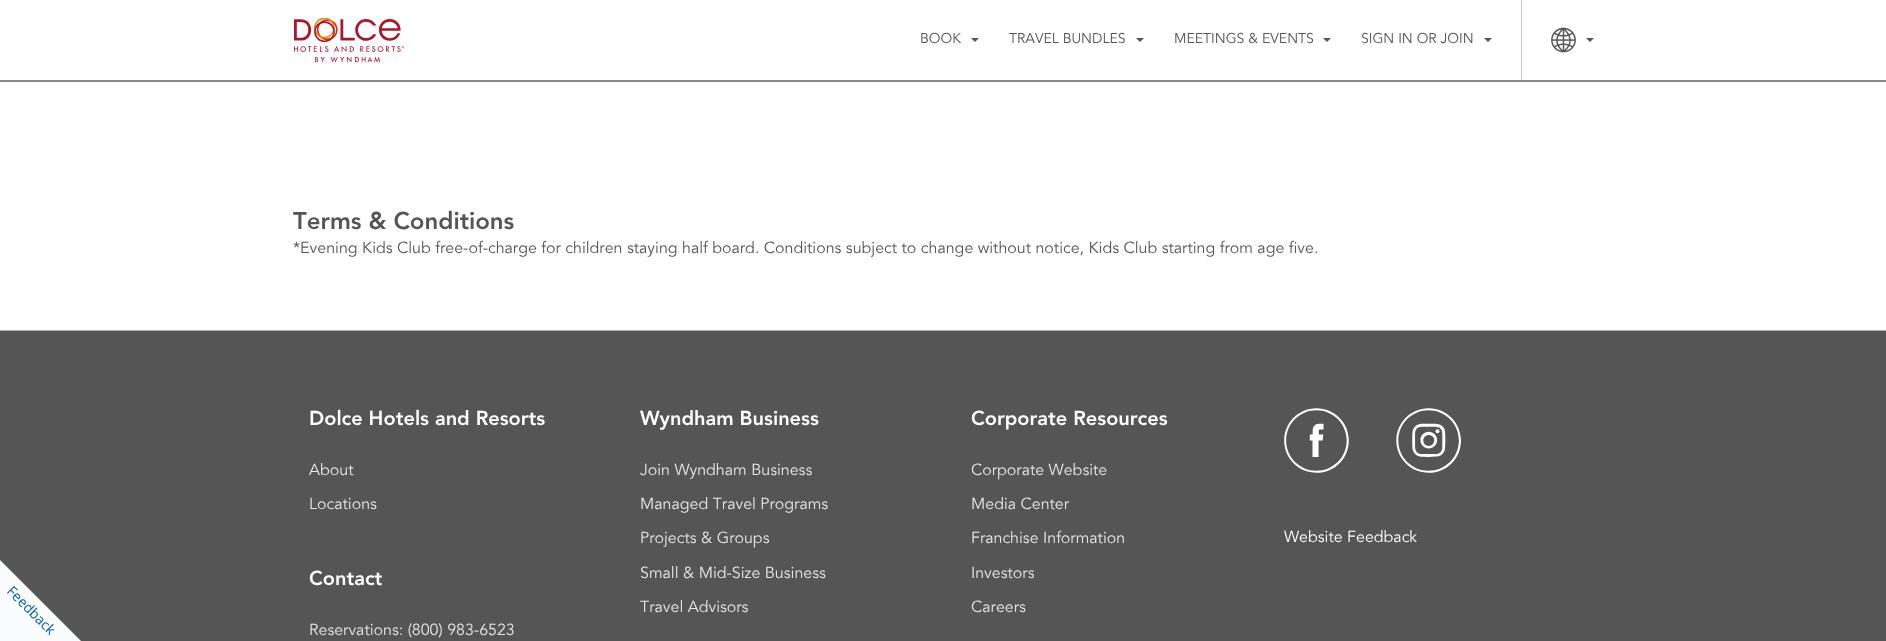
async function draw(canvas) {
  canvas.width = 1886;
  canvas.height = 641;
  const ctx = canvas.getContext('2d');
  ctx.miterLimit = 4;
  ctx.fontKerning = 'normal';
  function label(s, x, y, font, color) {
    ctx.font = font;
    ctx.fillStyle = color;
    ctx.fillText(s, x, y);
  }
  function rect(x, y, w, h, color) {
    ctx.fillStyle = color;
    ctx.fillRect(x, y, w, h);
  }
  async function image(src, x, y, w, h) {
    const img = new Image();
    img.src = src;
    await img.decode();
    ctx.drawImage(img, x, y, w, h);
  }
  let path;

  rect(0, 0, 1886, 641, '#fff');
  rect(0, 331, 1886, 310, '#555');
  ctx.fillStyle = '#f9fbfc';
  path = new Path2D('M81 641H0V560Z');
  ctx.fill(path);
  ctx.font = '14px Open Sans';
  ctx.fillStyle = '#0065ab';
  ctx.save();
  ctx.translate(6, 592);
  ctx.rotate(45 * Math.PI / 180);
  ctx.fillText('Feedback', 0, 0);
  ctx.restore();
  rect(0, 80, 1886, 2, '#888');
  await image('assets/img1.png', 294, 18, 110, 45);
  label('BOOK', 920, 43, '14px "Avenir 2"', '#555');
  path = new Path2D('M971 38H979L975 42Z');
  ctx.fill(path);
  label('TRAVEL BUNDLES', 1009, 43, '14px "Avenir 2"', '#555');
  path = new Path2D('M1136 38H1144L1140 42Z');
  ctx.fill(path);
  label('MEETINGS & EVENTS', 1174, 43, '14px "Avenir 2"', '#555');
  path = new Path2D('M1323 38H1331L1327 42Z');
  ctx.fill(path);
  label('SIGN IN OR JOIN', 1361, 43, '14px "Avenir 2"', '#555');
  path = new Path2D('M1484 38H1492L1488 42Z');
  ctx.fill(path);
  rect(1521, 0, 1, 80, '#c5c5c5');
  await image('assets/img2.png', 1551, 27, 25, 26);
  ctx.fillStyle = '#555';
  path = new Path2D('M1586 38H1594L1590 42Z');
  ctx.fill(path);
  label('Terms & Conditions', 293, 229, '24px Avenir', '#555');
  label('*Evening Kids Club free-of-charge for children staying half board. Conditions subject to change without notice, Kids Club starting from age five.', 293, 253, '16px "Avenir 2"', '#555');
  rect(0, 330, 1886, 1, '#afafaf');
  label('Dolce Hotels and Resorts', 309, 425, '20px Avenir', '#fff');
  label('About', 309, 475, '16px "Avenir 2"', '#e6e6e6');
  label('Locations', 309, 509, '16px "Avenir 2"', '#e6e6e6');
  label('Contact', 309, 585, '20px Avenir', '#fff');
  label('Reservations: (800) 983-6523', 309, 635, '16px "Avenir 2"', '#e6e6e6');
  label('Wyndham Business', 640, 425, '20px Avenir', '#fff');
  label('Join Wyndham Business', 640, 475, '16px "Avenir 2"', '#e6e6e6');
  label('Managed Travel Programs', 640, 509, '16px "Avenir 2"', '#e6e6e6');
  label('Projects & Groups', 640, 543, '16px "Avenir 2"', '#e6e6e6');
  label('Small & Mid-Size Business', 640, 578, '16px "Avenir 2"', '#e6e6e6');
  label('Travel Advisors', 640, 612, '16px "Avenir 2"', '#e6e6e6');
  label('Corporate Resources', 971, 425, '20px Avenir', '#fff');
  label('Corporate Website', 971, 475, '16px "Avenir 2"', '#e6e6e6');
  label('Media Center', 971, 509, '16px "Avenir 2"', '#e6e6e6');
  label('Franchise Information', 971, 543, '16px "Avenir 2"', '#e6e6e6');
  label('Investors', 971, 578, '16px "Avenir 2"', '#e6e6e6');
  label('Careers', 971, 612, '16px "Avenir 2"', '#e6e6e6');
  await image('assets/img3.png', 1284, 408, 65, 65);
  await image('assets/img4.png', 1396, 408, 65, 65);
  label('Website Feedback', 1284, 542, '16px "Avenir 2"', '#fff');
}

draw(document.querySelector('canvas'));
